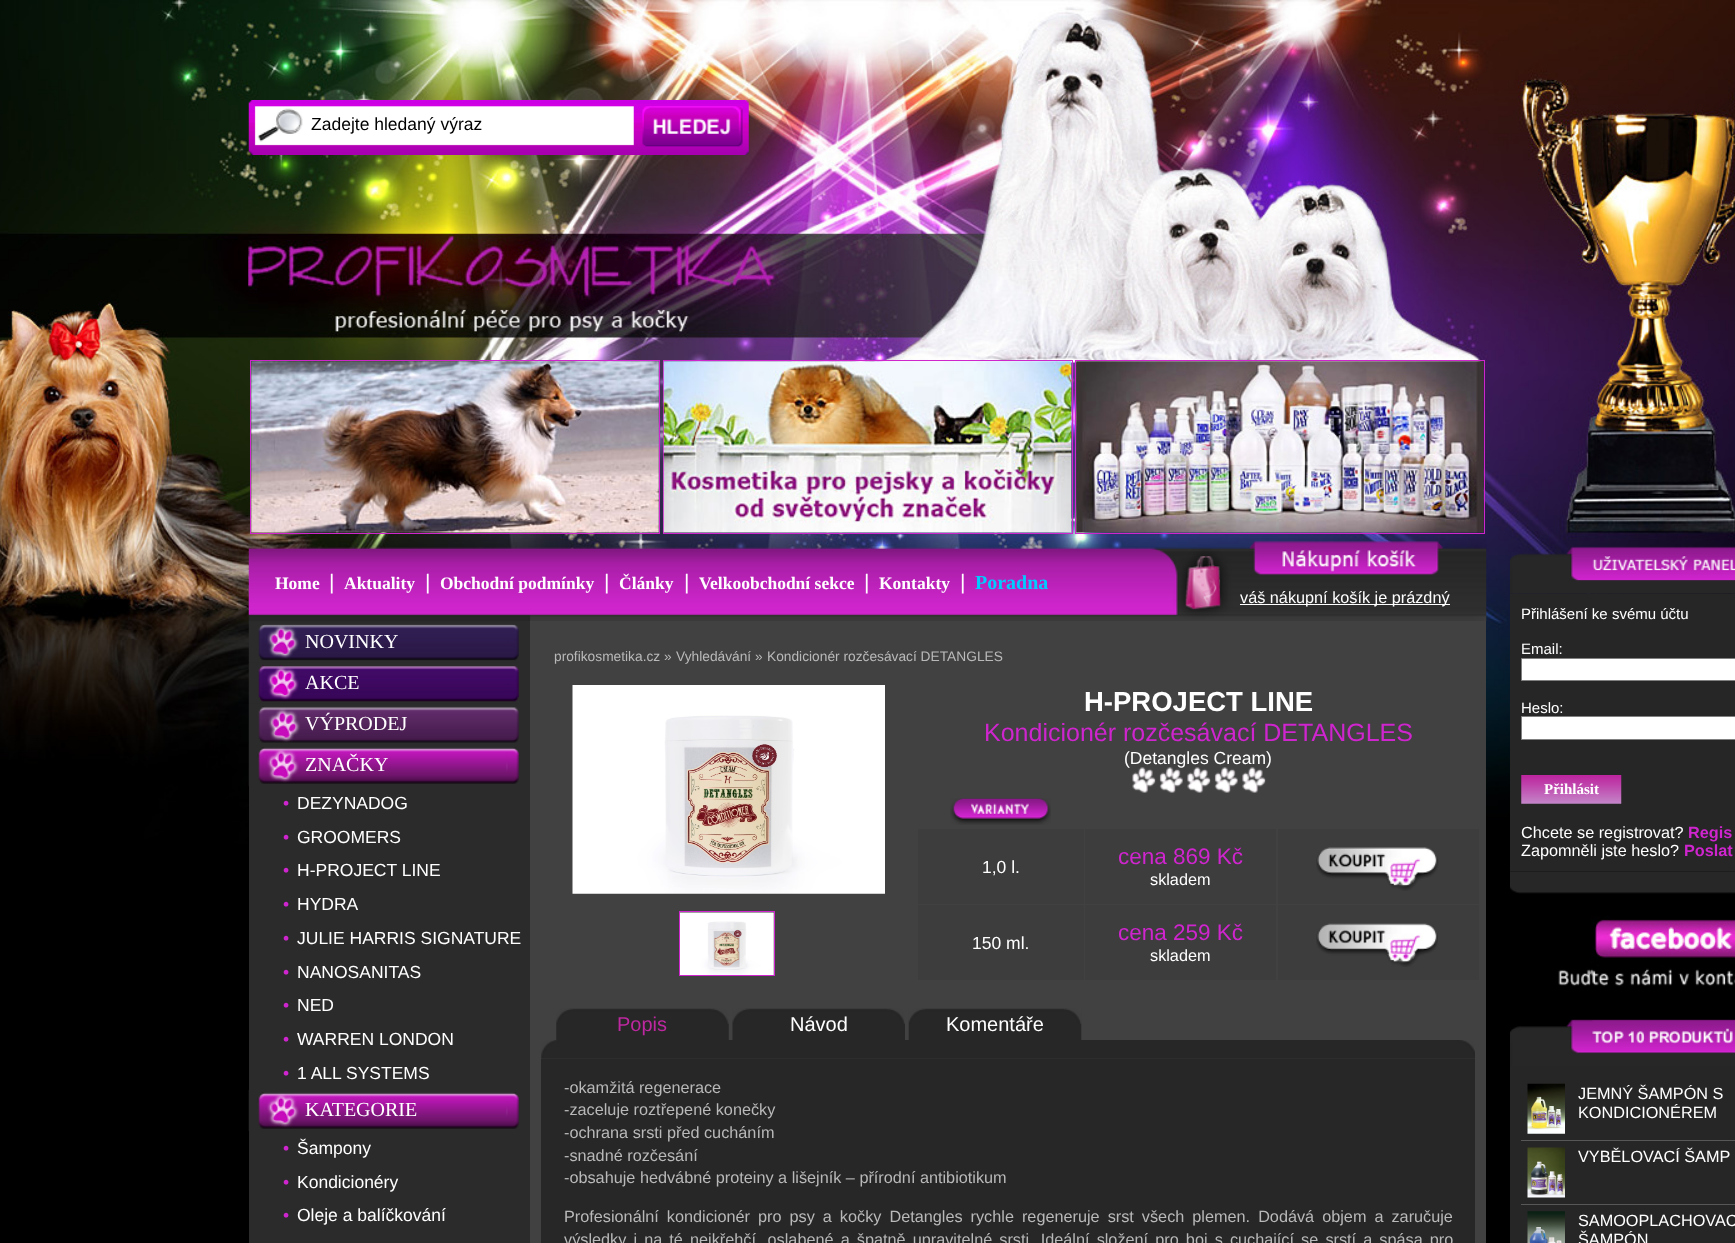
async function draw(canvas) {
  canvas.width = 1735;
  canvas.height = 1243;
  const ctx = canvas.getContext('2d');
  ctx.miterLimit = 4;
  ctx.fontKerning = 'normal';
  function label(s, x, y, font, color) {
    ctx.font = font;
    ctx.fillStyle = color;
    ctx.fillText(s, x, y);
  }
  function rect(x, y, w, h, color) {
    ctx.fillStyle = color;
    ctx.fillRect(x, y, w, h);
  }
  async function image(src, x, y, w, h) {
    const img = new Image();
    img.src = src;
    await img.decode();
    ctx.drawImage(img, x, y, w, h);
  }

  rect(0, 0, 1735, 1243, '#000');
  await image('assets/img1.png', 0, 0, 1735, 851);
  await image('assets/img2.png', 248, 100, 501, 55);
  label('Zadejte hledaný výraz', 311, 130, '17.5px Liberation Sans', '#000');
  ctx.strokeStyle = '#cf25cd';
  ctx.strokeRect(250.5, 360.5, 409, 173);
  ctx.strokeRect(663.5, 360.5, 409, 173);
  ctx.strokeRect(1075.5, 360.5, 409, 173);
  await image('assets/img3.png', 251, 361, 408, 172);
  await image('assets/img4.png', 663, 361, 409, 172);
  await image('assets/img5.png', 1076, 361, 408, 172);
  await image('assets/img6.png', 248, 538, 1239, 84);
  label('Home', 275, 589, 'bold 17.5px Liberation Serif', '#fff');
  label('|', 329, 589, '21px Liberation Sans', '#fff');
  label('Aktuality', 344, 589, 'bold 17.5px Liberation Serif', '#fff');
  label('|', 425, 589, '21px Liberation Sans', '#fff');
  label('Obchodní podmínky', 440, 589, 'bold 17.5px Liberation Serif', '#fff');
  label('|', 604, 589, '21px Liberation Sans', '#fff');
  label('Články', 619, 589, 'bold 17.5px Liberation Serif', '#fff');
  label('|', 684, 589, '21px Liberation Sans', '#fff');
  label('Velkoobchodní sekce', 699, 589, 'bold 17.5px Liberation Serif', '#fff');
  label('|', 864, 589, '21px Liberation Sans', '#fff');
  label('Kontakty', 879, 589, 'bold 17.5px Liberation Serif', '#fff');
  label('|', 960, 589, '21px Liberation Sans', '#fff');
  label('Poradna', 975, 589, 'bold 20px Liberation Serif', '#0cf');
  rect(1240, 604, 210, 1, '#fff');
  label('váš nákupní košík je prázdný', 1240, 603, '16.25px Liberation Sans', '#fff');
  await image('assets/img7.png', 1510, 546, 225, 48);
  rect(1510, 594, 225, 277, '#262626');
  label('Přihlášení ke svému účtu', 1521, 619, '15px Liberation Sans', '#fff');
  label('Email:', 1521, 654, '15px Liberation Sans', '#fff');
  ctx.beginPath();
  ctx.rect(1521.5, 658.5, 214, 22);
  ctx.fill();
  ctx.strokeStyle = '#808080';
  ctx.stroke();
  label('Heslo:', 1521, 713, '15px Liberation Sans', '#fff');
  ctx.beginPath();
  ctx.rect(1521.5, 716.5, 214, 23);
  ctx.fill();
  ctx.stroke();
  await image('assets/img8.png', 1521, 775, 101, 29);
  label('Přihlásit', 1544, 794, 'bold 15px Liberation Serif', '#fff');
  label('Chcete se registrovat?', 1521, 838, '16.25px Liberation Sans', '#fff');
  label('Regis', 1688, 838, 'bold 16.25px Liberation Sans', '#cf25ce');
  label('Zapomněli jste heslo?', 1521, 856, '16.25px Liberation Sans', '#fff');
  label('Poslat', 1684, 856, 'bold 16.25px Liberation Sans', '#cf25ce');
  await image('assets/img9.png', 1510, 871, 225, 23);
  await image('assets/img10.png', 1558, 916, 177, 71);
  await image('assets/img11.png', 1510, 1019, 225, 47);
  rect(1510, 1066, 225, 177, '#262626');
  rect(1521, 1140, 214, 1, '#575757');
  await image('assets/img12.png', 1527, 1083, 38, 51);
  label('JEMNÝ ŠAMPÓN S', 1578, 1099, '16.25px Liberation Sans', '#fff');
  label('KONDICIONÉREM', 1578, 1118, '16.25px Liberation Sans', '#fff');
  rect(1521, 1204, 214, 1, '#575757');
  await image('assets/img13.png', 1527, 1147, 38, 51);
  label('VYBĚLOVACÍ ŠAMP', 1578, 1162, '16.25px Liberation Sans', '#fff');
  await image('assets/img14.png', 1527, 1211, 38, 32);
  label('SAMOOPLACHOVAC', 1578, 1226, '16.25px Liberation Sans', '#fff');
  label('ŠAMPÓN', 1578, 1245, '16.25px Liberation Sans', '#fff');
  rect(249, 621, 281, 622, '#2b2b2b');
  await image('assets/img15.png', 248, 621, 271, 42);
  label('NOVINKY', 305, 648, '20px Liberation Serif', '#fff');
  await image('assets/img16.png', 248, 663, 271, 41);
  label('AKCE', 305, 689, '20px Liberation Serif', '#fff');
  await image('assets/img17.png', 248, 704, 271, 41);
  label('VÝPRODEJ', 305, 730, '20px Liberation Serif', '#fff');
  await image('assets/img18.png', 248, 745, 271, 41);
  label('ZNAČKY', 305, 771, '20px Liberation Serif', '#fff');
  label('•', 283, 809, 'bold 17.5px Liberation Serif', '#cf25ce');
  label('DEZYNADOG', 297, 809, '17.5px Liberation Sans', '#fff');
  label('•', 283, 843, 'bold 17.5px Liberation Serif', '#cf25ce');
  label('GROOMERS', 297, 843, '17.5px Liberation Sans', '#fff');
  label('•', 283, 876, 'bold 17.5px Liberation Serif', '#cf25ce');
  label('H-PROJECT LINE', 297, 876, '17.5px Liberation Sans', '#fff');
  label('•', 283, 910, 'bold 17.5px Liberation Serif', '#cf25ce');
  label('HYDRA', 297, 910, '17.5px Liberation Sans', '#fff');
  label('•', 283, 944, 'bold 17.5px Liberation Serif', '#cf25ce');
  label('JULIE HARRIS SIGNATURE', 297, 944, '17.5px Liberation Sans', '#fff');
  label('•', 283, 978, 'bold 17.5px Liberation Serif', '#cf25ce');
  label('NANOSANITAS', 297, 978, '17.5px Liberation Sans', '#fff');
  label('•', 283, 1011, 'bold 17.5px Liberation Serif', '#cf25ce');
  label('NED', 297, 1011, '17.5px Liberation Sans', '#fff');
  label('•', 283, 1045, 'bold 17.5px Liberation Serif', '#cf25ce');
  label('WARREN LONDON', 297, 1045, '17.5px Liberation Sans', '#fff');
  label('•', 283, 1079, 'bold 17.5px Liberation Serif', '#cf25ce');
  label('1 ALL SYSTEMS', 297, 1079, '17.5px Liberation Sans', '#fff');
  await image('assets/img19.png', 248, 1090, 271, 41);
  label('KATEGORIE', 305, 1116, '20px Liberation Serif', '#fff');
  label('•', 283, 1154, 'bold 17.5px Liberation Serif', '#cf25ce');
  label('Šampony', 297, 1154, '17.5px Liberation Sans', '#fff');
  label('•', 283, 1188, 'bold 17.5px Liberation Serif', '#cf25ce');
  label('Kondicionéry', 297, 1188, '17.5px Liberation Sans', '#fff');
  label('•', 283, 1221, 'bold 17.5px Liberation Serif', '#cf25ce');
  label('Oleje a balíčkování', 297, 1221, '17.5px Liberation Sans', '#fff');
  rect(530, 621, 956, 622, '#414141');
  label('profikosmetika.cz', 554, 661, '13.75px Liberation Sans', '#b9b9b9');
  label('»', 664, 661, '13.75px Liberation Sans', '#b9b9b9');
  label('Vyhledávání', 676, 661, '13.75px Liberation Sans', '#b9b9b9');
  label('»', 755, 661, '13.75px Liberation Sans', '#b9b9b9');
  label('Kondicionér rozčesávací DETANGLES', 767, 661, '13.75px Liberation Sans', '#b9b9b9');
  await image('assets/img20.png', 572, 685, 313, 209);
  ctx.strokeStyle = '#cf25ce';
  ctx.strokeRect(679.5, 911.5, 95, 64);
  await image('assets/img21.png', 680, 912, 94, 63);
  label('H-PROJECT LINE', 1084, 711, 'bold 27.5px Liberation Sans', '#fff');
  label('Kondicionér rozčesávací DETANGLES', 984, 741, '25px Liberation Sans', '#cf25ce');
  label('(Detangles Cream)', 1124, 764, '17.5px Liberation Sans', '#fff');
  await image('assets/img22.png', 1132, 767, 24, 26);
  await image('assets/img23.png', 1159, 767, 24, 26);
  await image('assets/img24.png', 1187, 767, 24, 26);
  await image('assets/img25.png', 1214, 767, 24, 26);
  await image('assets/img24.png', 1242, 767, 24, 26);
  await image('assets/img26.png', 950, 798, 101, 27);
  rect(918, 829, 166, 75, '#3d3d3d');
  label('1,0 l.', 982, 873, '17.5px Liberation Sans', '#fff');
  rect(1085, 829, 191, 75, '#3d3d3d');
  label('cena 869 Kč', 1118, 864, '22.5px Liberation Sans', '#cf25ce');
  label('skladem', 1150, 885, '16.25px Liberation Sans', '#fff');
  rect(1278, 829, 201, 75, '#3d3d3d');
  await image('assets/img27.png', 1316, 847, 123, 44);
  rect(918, 905, 166, 75, '#3d3d3d');
  label('150 ml.', 972, 949, '17.5px Liberation Sans', '#fff');
  rect(1085, 905, 191, 75, '#3d3d3d');
  label('cena 259 Kč', 1118, 940, '22.5px Liberation Sans', '#cf25ce');
  label('skladem', 1150, 961, '16.25px Liberation Sans', '#fff');
  rect(1278, 905, 201, 75, '#3d3d3d');
  await image('assets/img28.png', 1316, 923, 122, 44);
  await image('assets/img29.png', 556, 1008, 173, 32);
  label('Popis', 617, 1031, '20px Liberation Sans', '#bd28a0');
  await image('assets/img30.png', 732, 1008, 173, 32);
  label('Návod', 790, 1031, '20px Liberation Sans', '#fff');
  await image('assets/img31.png', 908, 1008, 174, 32);
  label('Komentáře', 946, 1031, '20px Liberation Sans', '#fff');
  await image('assets/img32.png', 541, 1040, 934, 19);
  rect(541, 1059, 934, 184, '#272727');
  label('-okamžitá regenerace', 564, 1093, '16.25px Liberation Sans', '#b9b9b9');
  label('-zaceluje roztřepené konečky', 564, 1115, '16.25px Liberation Sans', '#b9b9b9');
  label('-ochrana srsti před cucháním', 564, 1138, '16.25px Liberation Sans', '#b9b9b9');
  label('-snadné rozčesání', 564, 1161, '16.25px Liberation Sans', '#b9b9b9');
  label('-obsahuje hedvábné proteiny a lišejník – přírodní antibiotikum', 564, 1183, '16.25px Liberation Sans', '#b9b9b9');
  ctx.wordSpacing = '3.5px';
  label('Profesionální kondicionér pro psy a kočky Detangles rychle regeneruje srst všech plemen. Dodává objem a zaručuje', 564, 1222, '16.25px Liberation Sans', '#b9b9b9');
  ctx.wordSpacing = '2.6px';
  label('výsledky i na té nejkřehčí, oslabené a špatně upravitelné srsti. Ideální složení pro boj s cuchající se srstí a spása pro', 564, 1245, '16.25px Liberation Sans', '#b9b9b9');
}

draw(document.querySelector('canvas'));
